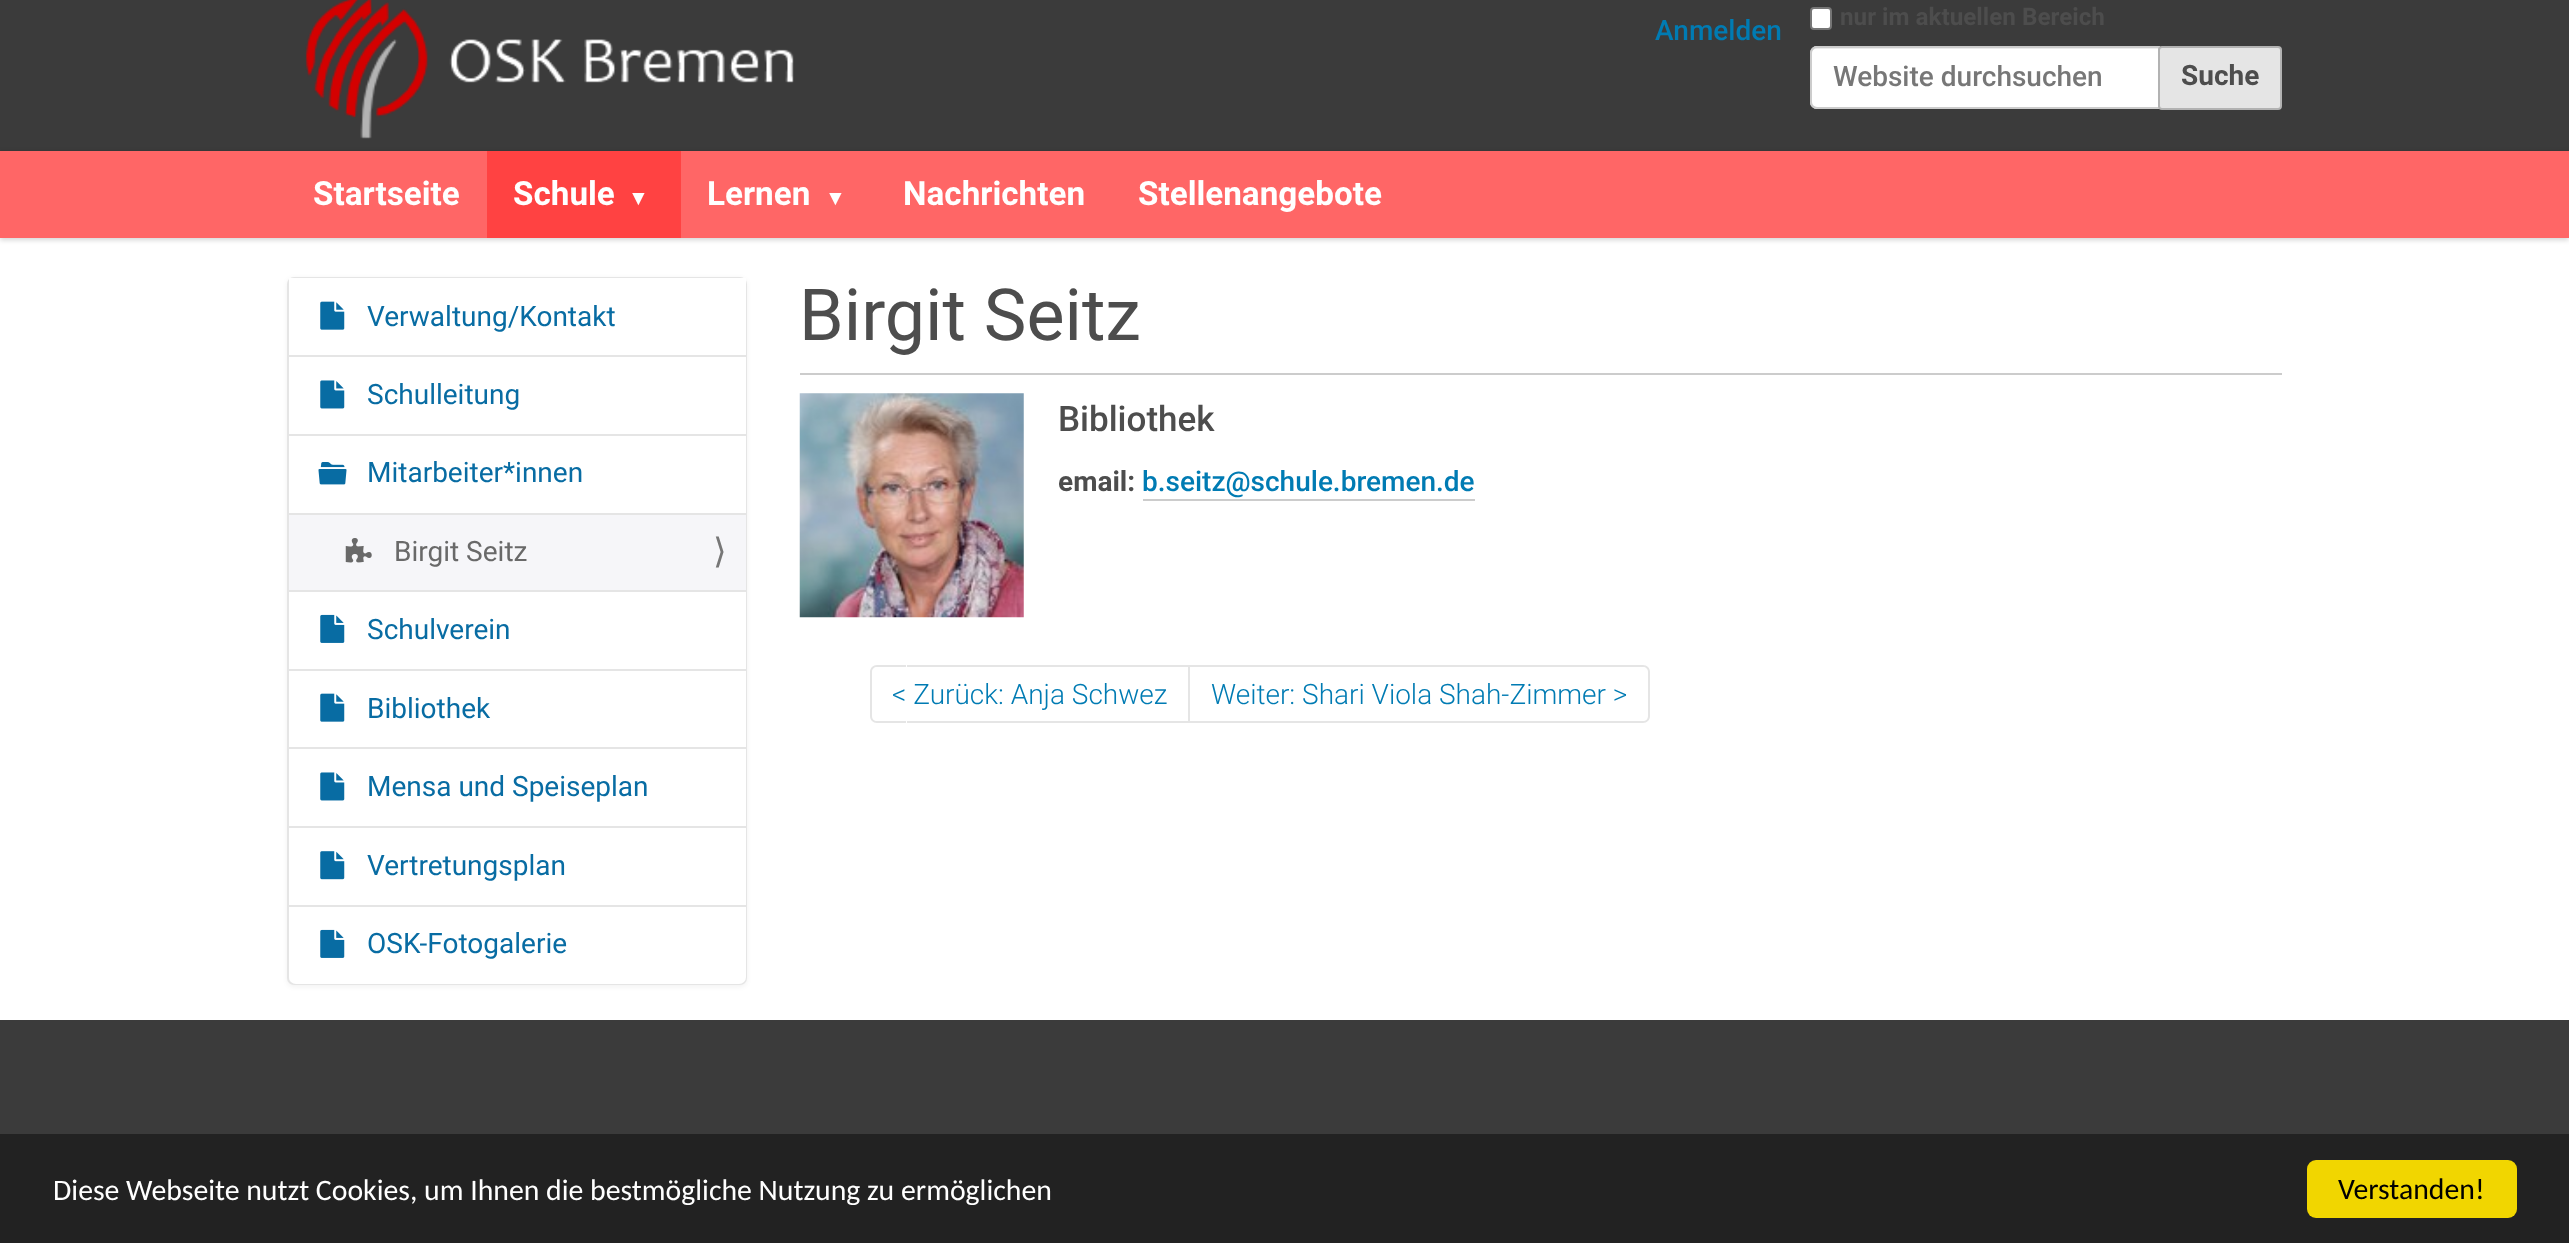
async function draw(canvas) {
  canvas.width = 2569;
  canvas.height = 1243;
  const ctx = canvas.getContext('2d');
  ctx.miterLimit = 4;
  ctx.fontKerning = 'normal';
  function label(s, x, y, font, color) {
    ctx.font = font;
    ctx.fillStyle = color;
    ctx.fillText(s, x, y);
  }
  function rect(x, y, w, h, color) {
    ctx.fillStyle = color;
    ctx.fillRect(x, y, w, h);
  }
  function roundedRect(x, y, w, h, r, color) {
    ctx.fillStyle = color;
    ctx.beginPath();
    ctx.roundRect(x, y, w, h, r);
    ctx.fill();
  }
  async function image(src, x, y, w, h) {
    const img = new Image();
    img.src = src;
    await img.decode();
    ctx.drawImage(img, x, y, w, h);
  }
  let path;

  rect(0, 0, 2569, 1243, '#fff');
  rect(0, 0, 2569, 151, '#3b3b3b');
  await image('assets/img1.png', 305, 0, 489, 139);
  label('Anmelden', 1655, 40, '500 28px Roboto', '#007bb3');
  ctx.fillStyle = '#fff';
  ctx.beginPath();
  ctx.roundRect(1811, 8, 20, 21, 3);
  ctx.fill();
  ctx.strokeStyle = '#767676';
  ctx.lineWidth = 2;
  ctx.stroke();
  label('nur im aktuellen Bereich', 1840, 25, 'bold 24.25px Roboto', '#4d4d4d');
  ctx.fillStyle = '#fff';
  ctx.beginPath();
  ctx.roundRect(1810, 46, 350, 63, [7, 0, 0, 7]);
  ctx.fill();
  ctx.fillStyle = '#ececec';
  path = new Path2D('M1816 49H2158V47H1816C1812 47 1811 51 1811 54C1811 51 1814 49 1816 49Z');
  ctx.fill(path);
  ctx.beginPath();
  ctx.roundRect(1811, 47, 348, 61, [6, 0, 0, 6]);
  ctx.strokeStyle = '#ccc';
  ctx.stroke();
  label('Website durchsuchen', 1833, 86, '500 28px Roboto', '#777');
  ctx.fillStyle = '#e5e5e5';
  ctx.beginPath();
  ctx.roundRect(2159, 47, 122, 62, 3);
  ctx.fill();
  ctx.strokeStyle = '#b2b2b2';
  ctx.stroke();
  label('Suche', 2181, 85, 'bold 28px Roboto', '#4d4d4d');
  ctx.fillStyle = '#0000002b';
  ctx.filter = 'blur(2.5px)';
  ctx.beginPath();
  ctx.rect(0, 152, 2569, 88);
  ctx.fill();
  ctx.filter = 'none';
  rect(0, 151, 2569, 87, '#f66');
  label('Startseite', 313, 205, 'bold 33.25px Roboto', '#fff');
  rect(487, 151, 194, 87, '#ff4242');
  label('Schule', 513, 205, 'bold 33.25px Roboto', '#fff');
  label('▼', 628, 205, 'bold 21px Liberation Sans', '#fff');
  label('Lernen', 707, 205, 'bold 33.25px Roboto', '#fff');
  label('▼', 825, 205, 'bold 21px Liberation Sans', '#fff');
  label('Nachrichten', 903, 205, 'bold 33.25px Roboto', '#fff');
  label('Stellenangebote', 1138, 205, 'bold 33.25px Roboto', '#fff');
  ctx.fillStyle = '#0000000d';
  ctx.filter = 'blur(2.5px)';
  ctx.beginPath();
  ctx.roundRect(287, 278, 460, 709, 7);
  ctx.fill();
  ctx.filter = 'none';
  ctx.beginPath();
  ctx.roundRect(288, 278, 458, 706, 6);
  ctx.strokeStyle = '#e5e5e5';
  ctx.stroke();
  ctx.fillStyle = '#fff';
  ctx.beginPath();
  ctx.roundRect(289, 278, 457, 706, [0, 0, 7, 7]);
  ctx.fill();
  await image('assets/img2.png', 320, 301, 25, 29);
  label('Verwaltung/Kontakt', 367, 326, '28px Roboto', '#086ca3');
  rect(289, 355, 457, 2, '#e5e5e5');
  await image('assets/img3.png', 320, 380, 25, 29);
  label('Schulleitung', 367, 404, '28px Roboto', '#086ca3');
  rect(289, 434, 457, 2, '#e5e5e5');
  await image('assets/img4.png', 318, 462, 29, 23);
  label('Mitarbeiter*innen', 367, 482, '28px Roboto', '#086ca3');
  rect(289, 515, 457, 75, '#f6f6f9');
  rect(289, 513, 457, 2, '#e5e5e5');
  await image('assets/img5.png', 345, 538, 27, 25);
  label('Birgit Seitz', 394, 561, '28px Roboto', '#696969');
  label('⟩', 713, 563, '35px DejaVu Sans', '#777');
  rect(289, 590, 457, 2, '#e5e5e5');
  await image('assets/img6.png', 320, 614, 25, 29);
  label('Schulverein', 367, 639, '28px Roboto', '#086ca3');
  rect(289, 669, 457, 2, '#e5e5e5');
  await image('assets/img2.png', 320, 693, 25, 29);
  label('Bibliothek', 367, 718, '28px Roboto', '#086ca3');
  rect(289, 747, 457, 2, '#e5e5e5');
  await image('assets/img3.png', 320, 772, 25, 29);
  label('Mensa und Speiseplan', 367, 796, '28px Roboto', '#086ca3');
  rect(289, 826, 457, 2, '#e5e5e5');
  await image('assets/img7.png', 320, 851, 25, 29);
  label('Vertretungsplan', 367, 875, '28px Roboto', '#086ca3');
  rect(289, 905, 457, 2, '#e5e5e5');
  await image('assets/img6.png', 320, 929, 25, 29);
  label('OSK-Fotogalerie', 367, 953, '28px Roboto', '#086ca3');
  rect(800, 373, 1482, 2, '#ccc');
  label('Birgit Seitz', 799, 340, '71.75px Roboto', '#4d4d4d');
  await image('assets/img8.png', 799, 393, 225, 225);
  label('Bibliothek', 1058, 431, '500 35px Roboto', '#4d4d4d');
  label('email:', 1058, 491, 'bold 28px Roboto', '#4d4d4d');
  label('b.seitz@schule.bremen.de', 1142, 491, '500 28px Roboto', '#007bb3');
  rect(1143, 499, 332, 2, '#ccc');
  ctx.fillStyle = '#e5e5e5';
  path = new Path2D('M877 665H906V723H877C873 723 870 720 870 716V672C870 668 873 665 877 665ZM877 667H906V721H877C874 721 872 719 872 716V672C872 669 874 667 877 667Z');
  ctx.fill(path, 'evenodd');
  label('< Zurück: Anja Schwez', 892, 704, '300 28px Roboto', '#007bb3');
  rect(907, 665, 707, 2, '#e5e5e5');
  rect(907, 721, 707, 2, '#e5e5e5');
  path = new Path2D('M1614 665H1643C1647 665 1650 668 1650 672V716C1650 720 1647 723 1643 723H1614ZM1614 667H1643C1646 667 1648 669 1648 672V716C1648 719 1646 721 1643 721H1614Z');
  ctx.fill(path, 'evenodd');
  label('Weiter: Shari Viola Shah-Zimmer >', 1211, 704, '300 28px Roboto', '#007bb3');
  rect(1188, 665, 2, 58, '#e5e5e5');
  rect(0, 1020, 2569, 114, '#3b3b3b');
  rect(0, 1134, 2569, 109, '#222');
  label('Diese Webseite nutzt Cookies, um Ihnen die bestmögliche Nutzung zu ermöglichen', 53, 1200, '29.75px Carlito', '#fff');
  roundedRect(2307, 1160, 210, 58, 9, '#f1d600');
  label('Verstanden!', 2338, 1199, '29.75px Carlito', '#000');
}

draw(document.querySelector('canvas'));
